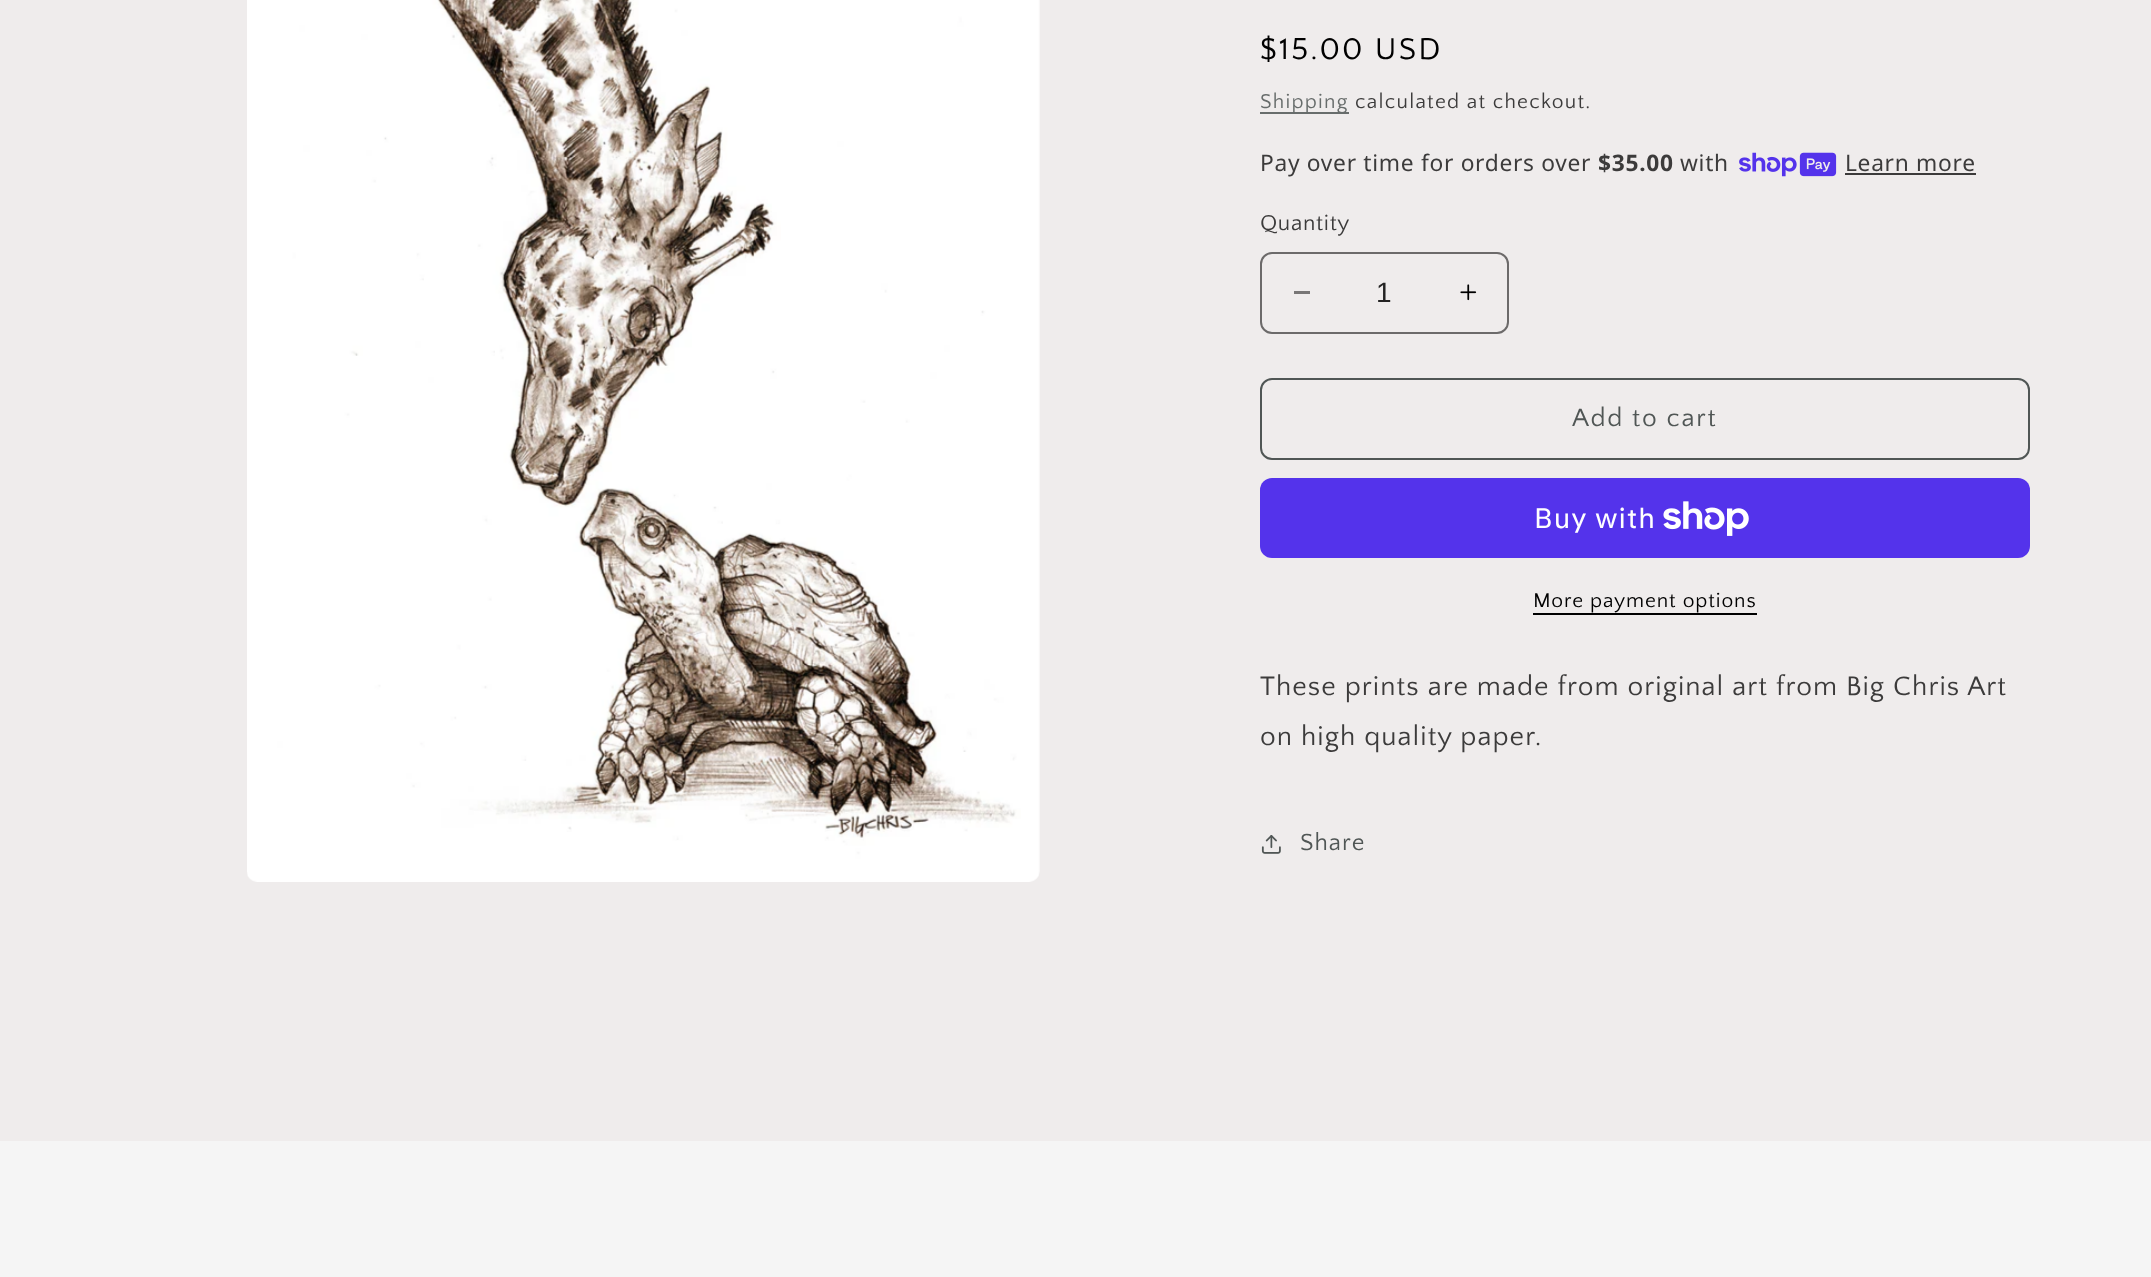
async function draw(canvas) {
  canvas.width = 2151;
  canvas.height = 1277;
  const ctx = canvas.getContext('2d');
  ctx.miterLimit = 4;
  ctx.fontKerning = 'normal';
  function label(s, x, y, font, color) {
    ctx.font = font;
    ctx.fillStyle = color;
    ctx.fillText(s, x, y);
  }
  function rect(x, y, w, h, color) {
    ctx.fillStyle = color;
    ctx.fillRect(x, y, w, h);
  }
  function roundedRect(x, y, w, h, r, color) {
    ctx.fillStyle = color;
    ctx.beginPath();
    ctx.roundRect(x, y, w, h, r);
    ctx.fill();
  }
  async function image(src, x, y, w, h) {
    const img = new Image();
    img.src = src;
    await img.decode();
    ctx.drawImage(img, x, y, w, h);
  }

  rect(0, 0, 2151, 1277, '#efecec');
  await image('assets/img1.png', 247, 0, 793, 882);
  ctx.letterSpacing = '2.25px';
  label('$15.00 USD', 1260, 59, '31.5px Quattrocento Sans', '#000');
  rect(1260, 112, 89, 2, '#686d6c');
  ctx.letterSpacing = '1.25px';
  label('Shipping', 1260, 108, '21px Quattrocento Sans', '#676c6b');
  label('calculated at checkout.', 1355, 108, '21px Quattrocento Sans', '#3c3b3b');
  ctx.letterSpacing = '0.7px';
  label('Pay over time for orders over', 1260, 171, '22.75px Noto Sans', '#3c3b3b');
  label('$35.00', 1598, 171, 'bold 22.75px Noto Sans', '#3c3b3b');
  label('with', 1680, 171, '22.75px Noto Sans', '#3c3b3b');
  await image('assets/img2.png', 1739, 152, 98, 25);
  label('Learn more', 1845, 171, '22.75px Noto Sans', '#3c3b3b');
  rect(1845, 173, 131, 2, '#3c3b3b');
  label('Quantity', 1260, 230, '22.75px Quattrocento Sans', '#3c3b3b');
  rect(1294, 291, 16, 3, '#787676');
  await image('assets/img3.png', 1460, 284, 17, 17);
  ctx.beginPath();
  ctx.roundRect(1261, 253, 247, 80, 11);
  ctx.strokeStyle = '#6c6a6a';
  ctx.lineWidth = 2;
  ctx.stroke();
  ctx.letterSpacing = '0px';
  label('1', 1376, 302, '28px Liberation Sans', '#242323');
  ctx.beginPath();
  ctx.roundRect(1261, 379, 768, 80, 11);
  ctx.strokeStyle = '#505655';
  ctx.stroke();
  ctx.letterSpacing = '1.75px';
  label('Add to cart', 1572, 426, '26.25px Quattrocento Sans', '#505655');
  roundedRect(1260, 478, 770, 80, 12, '#5433eb');
  ctx.letterSpacing = '1.05px';
  label('Buy with', 1534, 528, '28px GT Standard', '#fff');
  await image('assets/img4.png', 1663, 501, 86, 35);
  ctx.letterSpacing = '0.9px';
  label('More payment options', 1533, 607, '21px Quattrocento Sans', '#000');
  rect(1533, 613, 224, 2, '#000');
  ctx.letterSpacing = '1.05px';
  label('These prints are made from original art from Big Chris Art', 1260, 695, '28px Quattrocento Sans', '#3c3b3b');
  label('on high quality paper.', 1260, 745, '28px Quattrocento Sans', '#3c3b3b');
  await image('assets/img5.png', 1261, 835, 20, 19);
  label('Share', 1300, 850, '24.5px Quattrocento Sans', '#505655');
  rect(0, 1141, 2151, 136, '#f5f5f5');
}

draw(document.querySelector('canvas'));
